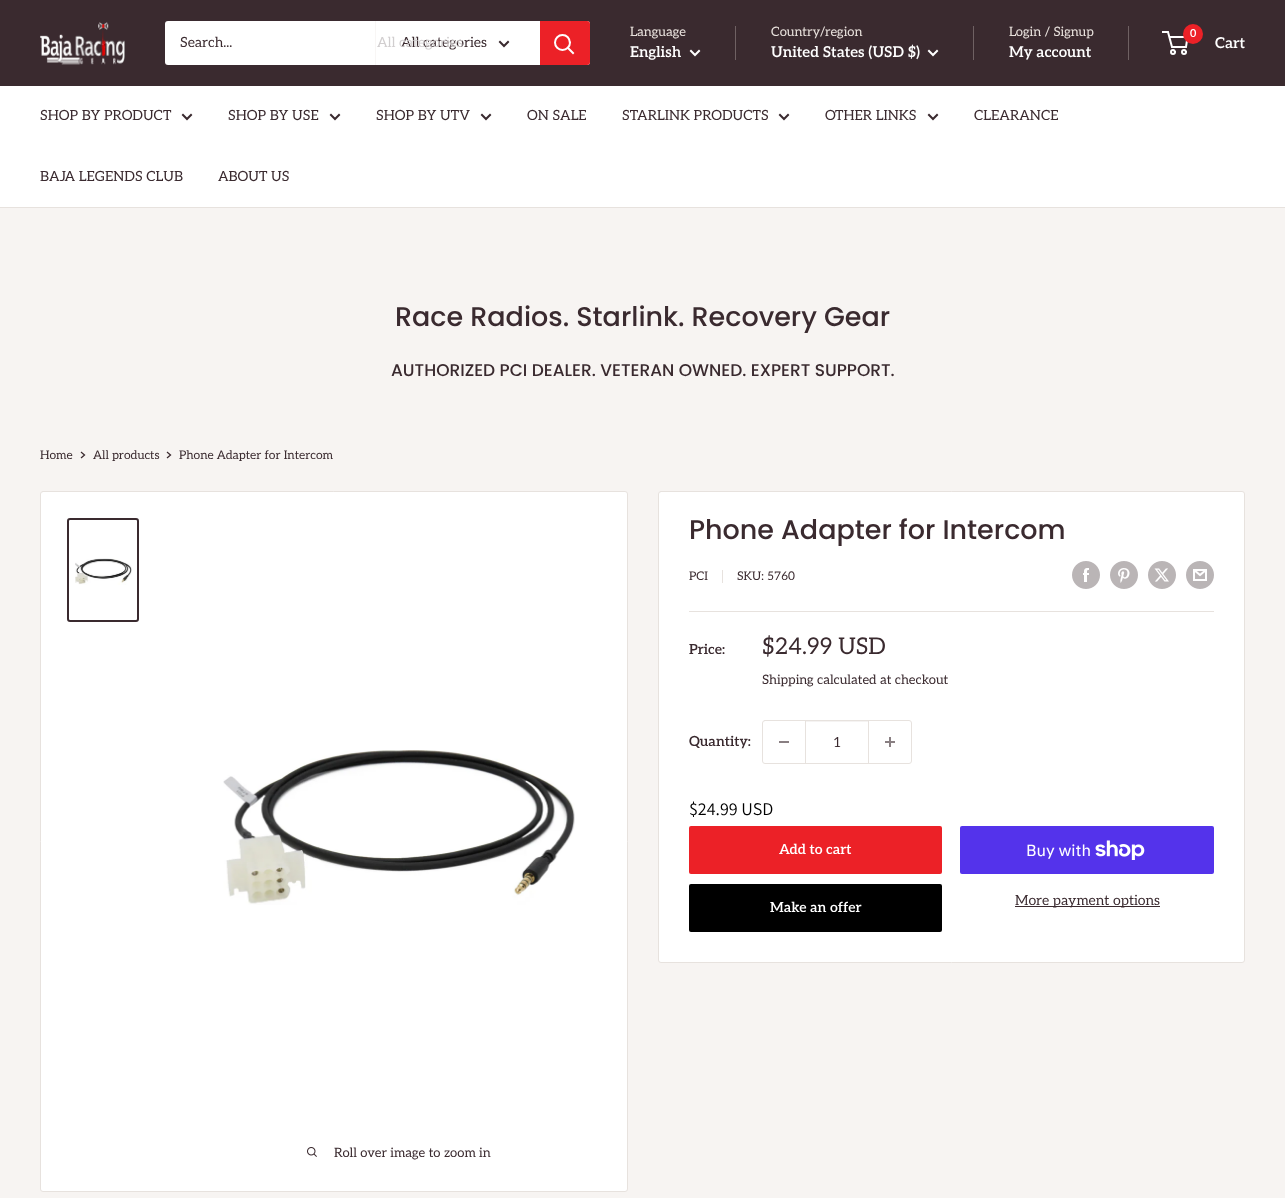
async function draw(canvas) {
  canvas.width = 1285;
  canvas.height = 1198;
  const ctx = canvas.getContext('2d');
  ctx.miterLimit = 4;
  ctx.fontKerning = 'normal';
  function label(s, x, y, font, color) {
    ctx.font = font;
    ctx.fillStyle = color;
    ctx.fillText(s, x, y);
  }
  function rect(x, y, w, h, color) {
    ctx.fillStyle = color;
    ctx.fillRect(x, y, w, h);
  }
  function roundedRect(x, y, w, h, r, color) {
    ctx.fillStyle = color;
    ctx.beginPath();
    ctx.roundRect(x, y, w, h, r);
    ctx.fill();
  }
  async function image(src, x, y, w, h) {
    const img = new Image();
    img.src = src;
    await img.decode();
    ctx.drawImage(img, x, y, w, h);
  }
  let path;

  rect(0, 0, 1285, 1198, '#f7f4f2');
  rect(0, 0, 1285, 86, '#3a2a2f');
  await image('assets/img1.png', 40, 22, 85, 43);
  roundedRect(165, 21, 425, 44, 3, '#fff');
  label('Search...', 180, 47, '14px Aleo', '#3a2a2f');
  rect(375, 21, 1, 44, '#f8f6f5');
  label('All categories', 401, 47, '14px Aleo', '#3a2a2f');
  label('All categories', 377, 47, '14px Aleo', '#d1cecf');
  path = new Path2D('M508 42L504 46L500 42');
  ctx.strokeStyle = '#3a2a2f';
  ctx.lineWidth = 2;
  ctx.lineCap = 'square';
  ctx.stroke(path);
  ctx.fillStyle = '#ec2127';
  ctx.beginPath();
  ctx.roundRect(540, 21, 50, 44, [0, 3, 3, 0]);
  ctx.fill();
  path = new Path2D('M573 53L568 48');
  ctx.strokeStyle = '#fff';
  ctx.stroke(path);
  ctx.beginPath();
  ctx.arc(562.5, 42.5, 7.5, 0, 2 * Math.PI);
  ctx.stroke();
  label('Language', 630, 36, '13px Aleo', '#e9e2dd');
  label('English', 630, 57, '600 15px Aleo', '#fff');
  path = new Path2D('M699 51L695 55L691 51');
  ctx.stroke(path);
  rect(735, 26, 1, 34, '#6f6163');
  label('Country/region', 771, 36, '13px Aleo', '#e9e2dd');
  label('United States (USD $)', 771, 57, '600 15px Aleo', '#fff');
  path = new Path2D('M937 51L933 55L929 51');
  ctx.stroke(path);
  rect(973, 26, 1, 34, '#6f6163');
  label('Login / Signup', 1009, 36, '13px Aleo', '#e9e2dd');
  rect(1128, 26, 1, 34, '#6f6163');
  label('My account', 1009, 57, '600 15px Aleo', '#fff');
  ctx.beginPath();
  ctx.arc(1173, 52, 2, 0, 2 * Math.PI);
  ctx.stroke();
  ctx.beginPath();
  ctx.arc(1184, 52, 2, 0, 2 * Math.PI);
  ctx.stroke();
  path = new Path2D('M1169.5 37H1187.5L1186 47H1172L1168 32H1162');
  ctx.lineCap = 'butt';
  ctx.stroke(path);
  ctx.fillStyle = '#ec2127';
  ctx.beginPath();
  ctx.arc(1193, 34, 10, 0, 2 * Math.PI);
  ctx.fill();
  label('0', 1190, 37, '600 11px Aleo', '#fff');
  label('Cart', 1215, 48, '600 15px Aleo', '#fff');
  rect(0, 86, 1285, 121, '#fff');
  rect(0, 207, 1285, 1, '#e7e2de');
  label('SHOP BY PRODUCT', 40, 120, '14px Aleo', '#3a2a2f');
  path = new Path2D('M191 115L187 119L183 115');
  ctx.strokeStyle = '#3a2a2f';
  ctx.lineCap = 'square';
  ctx.stroke(path);
  label('SHOP BY USE', 228, 120, '14px Aleo', '#3a2a2f');
  path = new Path2D('M339 115L335 119L331 115');
  ctx.stroke(path);
  label('SHOP BY UTV', 376, 120, '14px Aleo', '#3a2a2f');
  path = new Path2D('M490 115L486 119L482 115');
  ctx.stroke(path);
  label('ON SALE', 527, 120, '14px Aleo', '#3a2a2f');
  label('STARLINK PRODUCTS', 622, 120, '14px Aleo', '#3a2a2f');
  path = new Path2D('M788 115L784 119L780 115');
  ctx.stroke(path);
  label('OTHER LINKS', 825, 120, '14px Aleo', '#3a2a2f');
  path = new Path2D('M937 115L933 119L929 115');
  ctx.stroke(path);
  label('CLEARANCE', 974, 120, '14px Aleo', '#3a2a2f');
  label('BAJA LEGENDS CLUB', 40, 181, '14px Aleo', '#3a2a2f');
  label('ABOUT US', 218, 181, '14px Aleo', '#3a2a2f');
  label('Race Radios. Starlink. Recovery Gear', 395, 326, '500 27px Poppins', '#3a2a2f');
  label('AUTHORIZED PCI DEALER. VETERAN OWNED. EXPERT SUPPORT.', 391, 376, '500 17px Poppins', '#3a2a2f');
  label('Home', 40, 459, '12px Aleo', '#3a2a2f');
  path = new Path2D('M81.5 452.5L84.5 455L81.5 457.5');
  ctx.lineWidth = 1.3;
  ctx.stroke(path);
  label('All products', 93, 459, '12px Aleo', '#3a2a2f');
  path = new Path2D('M167.5 452.5L170.5 455L167.5 457.5');
  ctx.stroke(path);
  label('Phone Adapter for Intercom', 179, 459, '12px Aleo', '#3a2a2f');
  ctx.fillStyle = '#fff';
  ctx.beginPath();
  ctx.roundRect(658.5, 491.5, 586, 471, 2.5);
  ctx.fill();
  ctx.strokeStyle = '#e7e2de';
  ctx.lineWidth = 1;
  ctx.stroke();
  label('Phone Adapter for Intercom', 689, 539, '500 27px Poppins', '#3a2a2f');
  label('PCI', 689, 580, '12px Aleo', '#3a2a2f');
  rect(722, 570, 1, 13, '#e7e2de');
  label('SKU: 5760', 737, 580, '12px Aleo', '#3a2a2f');
  await image('assets/img2.png', 1072, 561, 28, 28);
  await image('assets/img3.png', 1110, 561, 28, 28);
  await image('assets/img4.png', 1148, 561, 28, 28);
  await image('assets/img5.png', 1186, 561, 28, 28);
  rect(689, 611, 525, 1, '#e7e2de');
  label('Price:', 689, 654, '600 14px Aleo', '#3a2a2f');
  label('$24.99 USD', 762, 654, '23px Aleo', '#3a2a2f');
  label('Shipping calculated at checkout', 762, 684, '13px Aleo', '#3a2a2f');
  label('Quantity:', 689, 746, '600 14px Aleo', '#3a2a2f');
  ctx.beginPath();
  ctx.roundRect(762.5, 720.5, 149, 43, 2.5);
  ctx.stroke();
  rect(779, 741, 10, 2, '#897f82');
  rect(806, 721, 62, 1, '#f5f3f2');
  rect(868, 721, 1, 42, '#e7e2de');
  rect(805, 721, 1, 42, '#e7e2de');
  label('1', 833, 747, '14px Aleo', '#3a2a2f');
  await image('assets/img6.png', 885, 737, 10, 10);
  label('$24.99 USD', 689, 815, '18px Assistant', '#000');
  roundedRect(689, 826, 253, 48, 2, '#ec2127');
  label('Add to cart', 779, 854, '600 14px Aleo', '#fff');
  roundedRect(689, 884, 253, 48, 2, '#000');
  label('Make an offer', 770, 912, '600 14px Aleo', '#fff');
  roundedRect(960, 826, 254, 48, 2, '#5433eb');
  label('Buy with', 1026, 856, '16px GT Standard', '#fff');
  await image('assets/img7.png', 1095, 840, 50, 20);
  rect(1015, 906, 145, 1, '#3a2a2f');
  label('More payment options', 1015, 905, '14px Aleo', '#3a2a2f');
  ctx.fillStyle = '#fff';
  ctx.beginPath();
  ctx.roundRect(40.5, 491.5, 587, 700, 2.5);
  ctx.fill();
  ctx.stroke();
  ctx.beginPath();
  ctx.roundRect(68, 519, 70, 102, 2);
  ctx.strokeStyle = '#3a2a2f';
  ctx.lineWidth = 2;
  ctx.stroke();
  await image('assets/img8.png', 75, 558, 57, 27);
  await image('assets/img9.png', 223, 750, 352, 155);
  await image('assets/img10.png', 307, 1147, 10, 10);
  label('Roll over image to zoom in', 334, 1157, '13px Aleo', '#3a2a2f');
}

draw(document.querySelector('canvas'));
